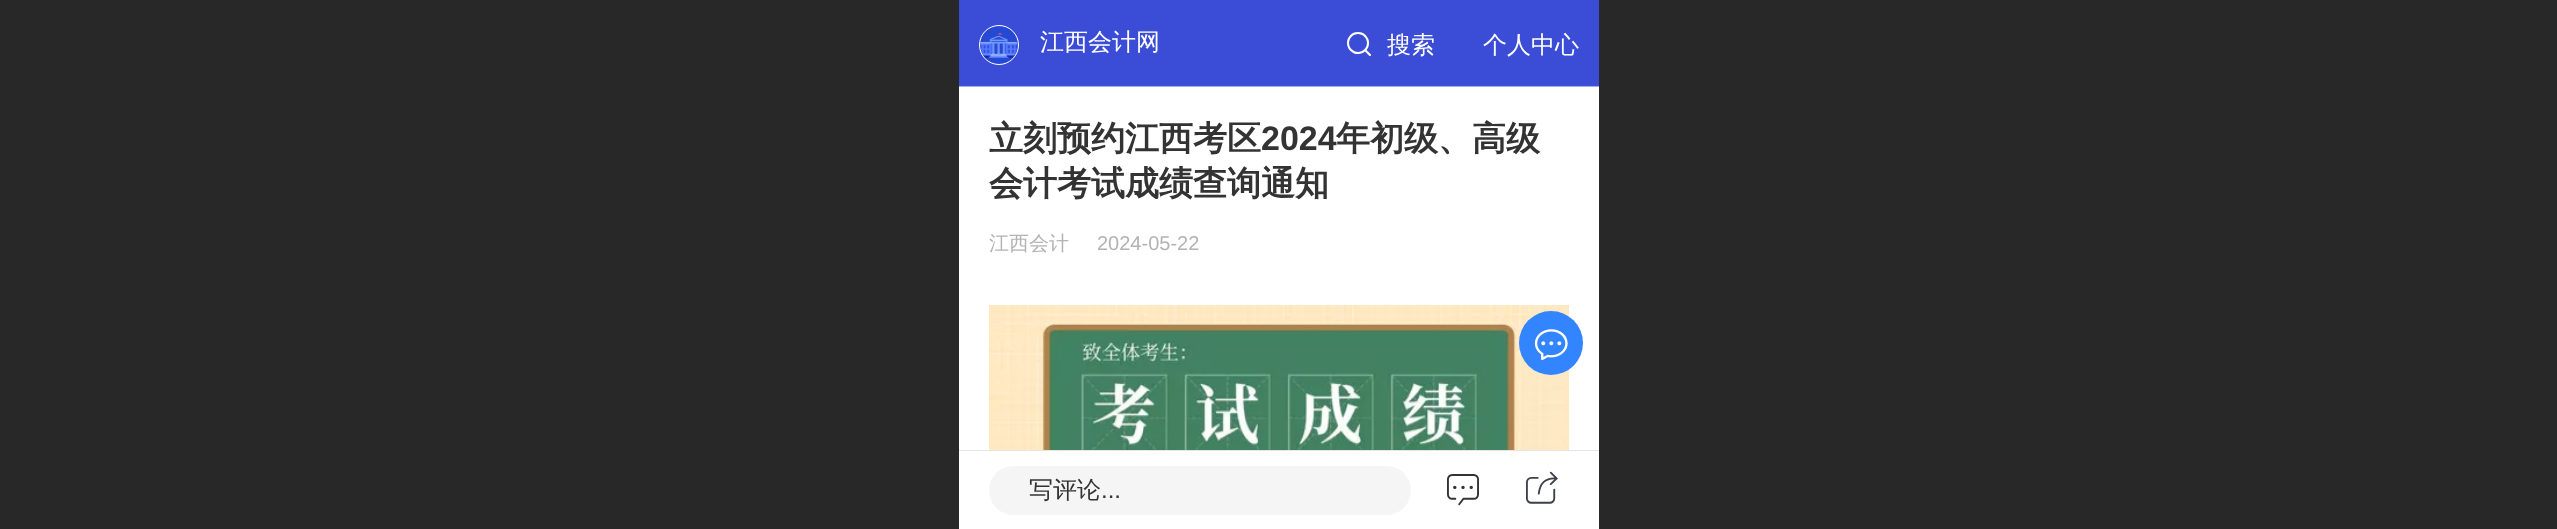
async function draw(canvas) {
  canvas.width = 2557;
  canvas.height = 529;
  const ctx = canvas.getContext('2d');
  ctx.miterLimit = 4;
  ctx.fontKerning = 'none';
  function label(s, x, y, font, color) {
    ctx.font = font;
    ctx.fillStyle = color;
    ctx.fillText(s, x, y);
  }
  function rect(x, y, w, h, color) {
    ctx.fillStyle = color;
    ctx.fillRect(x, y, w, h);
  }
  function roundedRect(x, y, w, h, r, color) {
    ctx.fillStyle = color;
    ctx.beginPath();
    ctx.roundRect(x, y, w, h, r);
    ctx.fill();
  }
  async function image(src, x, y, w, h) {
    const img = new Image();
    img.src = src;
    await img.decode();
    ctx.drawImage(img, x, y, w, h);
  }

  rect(0, 0, 2557, 529, '#fff');
  rect(0, 0, 959, 529, '#282828');
  await image('assets/img1.png', 959, 0, 640, 87);
  await image('assets/img2.png', 979, 26, 39, 38);
  ctx.beginPath();
  ctx.arc(999, 45, 19.5, 0, 2 * Math.PI);
  ctx.strokeStyle = '#fff';
  ctx.stroke();
  label('江西会计网', 1040, 50, '500 24px WenQuanYi Zen Hei', '#fff');
  label('򰊐', 1347, 54, '24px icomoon', '#fff');
  label('搜索', 1387, 53, '500 24px WenQuanYi Zen Hei', '#fff');
  label('个人中心', 1483, 53, '500 24px WenQuanYi Zen Hei', '#fff');
  label('立刻预约江西考区', 989, 150, 'bold 34px WenQuanYi Zen Hei', '#333');
  label('2024', 1261, 150, 'bold 34px Liberation Sans', '#333');
  label('年初级、高级', 1336, 150, 'bold 34px WenQuanYi Zen Hei', '#333');
  label('会计考试成绩查询通知', 989, 195, 'bold 34px WenQuanYi Zen Hei', '#333');
  label('江西会计', 989, 250, '500 20px WenQuanYi Zen Hei', '#b3b3b3');
  label('2024-05-22', 1097, 250, '20px Liberation Sans', '#b3b3b3');
  await image('assets/img3.png', 989, 305, 580, 145);
  rect(959, 450, 640, 1, '#e5e5e5');
  roundedRect(989, 466, 422, 49, 24.5, '#f5f5f5');
  label('写评论', 1029, 498, '500 24px WenQuanYi Zen Hei', '#333');
  label('...', 1101, 498, '24px Liberation Sans', '#333');
  label('򰌇', 1447, 503, '32px icomoon', '#333');
  label('򰌐', 1526, 501, '32px icomoon', '#3c414a');
  ctx.fillStyle = '#3285ff';
  ctx.beginPath();
  ctx.arc(1551, 343, 32, 0, 2 * Math.PI);
  ctx.fill();
  await image('assets/img4.png', 1534, 329, 34, 32);
  rect(1599, 0, 958, 529, '#282828');
}

draw(document.querySelector('canvas'));
